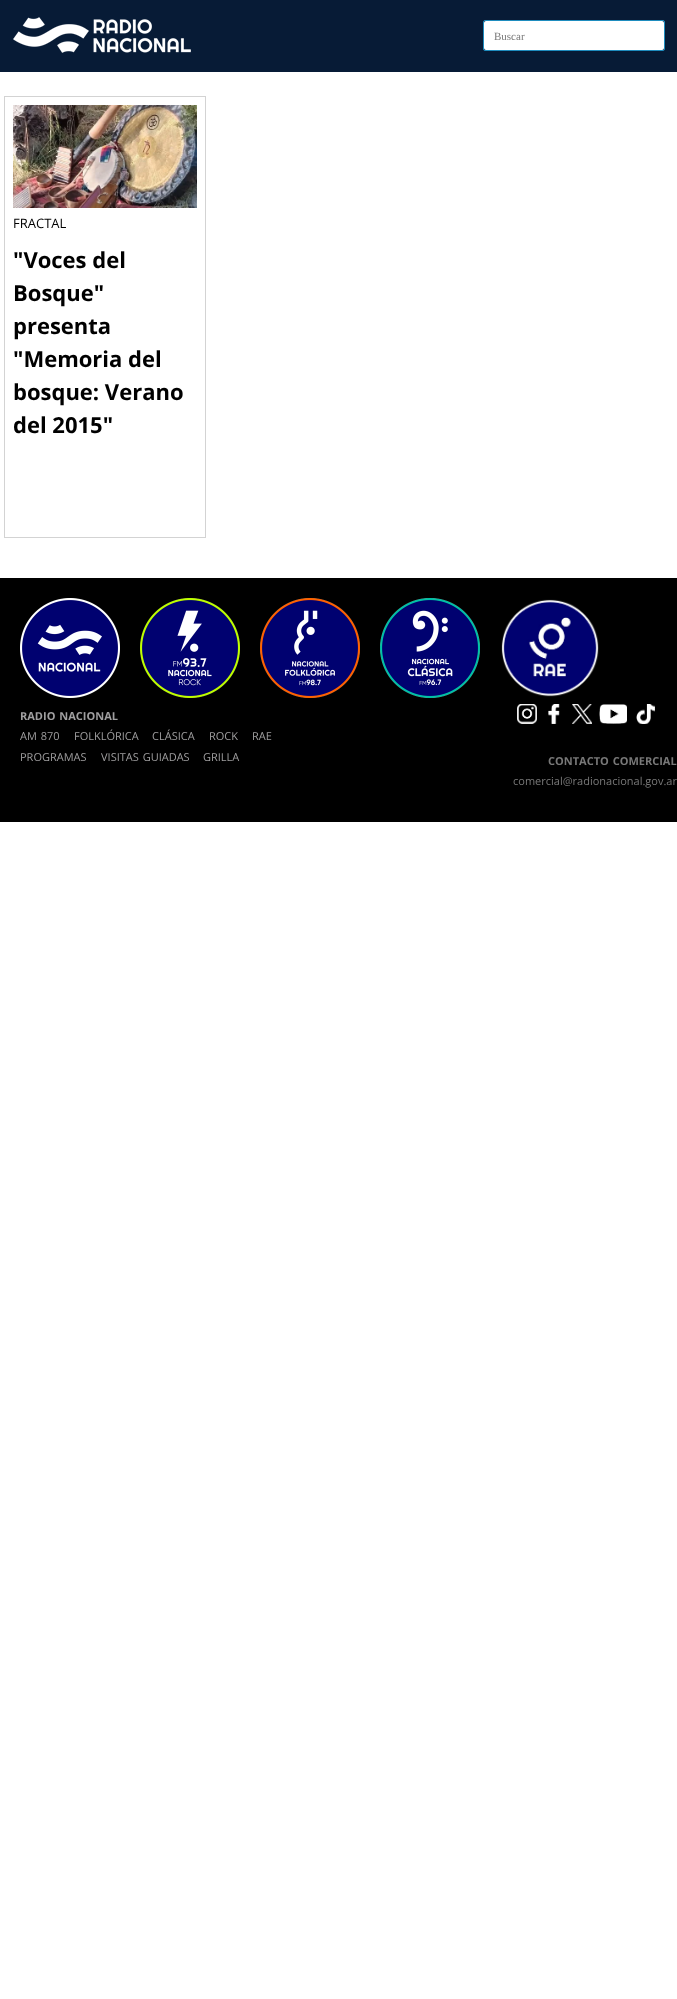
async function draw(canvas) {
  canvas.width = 677;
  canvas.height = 1999;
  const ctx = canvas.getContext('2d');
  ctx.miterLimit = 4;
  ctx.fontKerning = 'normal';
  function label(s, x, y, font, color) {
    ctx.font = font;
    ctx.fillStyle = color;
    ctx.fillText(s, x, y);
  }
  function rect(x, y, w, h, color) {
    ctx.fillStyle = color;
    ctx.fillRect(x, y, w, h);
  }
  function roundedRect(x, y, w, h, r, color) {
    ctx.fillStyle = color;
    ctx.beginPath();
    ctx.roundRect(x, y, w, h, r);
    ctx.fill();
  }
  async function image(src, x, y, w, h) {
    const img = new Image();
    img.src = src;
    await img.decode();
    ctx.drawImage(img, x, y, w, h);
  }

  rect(0, 0, 677, 1999, '#fff');
  rect(0, 0, 677, 72, '#071b36');
  await image('assets/img1.png', 13, 17, 178, 36);
  ctx.beginPath();
  ctx.roundRect(483.5, 20.5, 181, 30, 1.5);
  ctx.strokeStyle = '#1e8cbe';
  ctx.stroke();
  ctx.save();
  ctx.beginPath();
  ctx.roundRect(484, 21, 180, 29, 1);
  ctx.clip();
  roundedRect(484, 21, 180, 29, 2, '#fff');
  ctx.restore();
  label('Buscar', 494, 40, '11px Liberation Serif', '#787878');
  ctx.strokeStyle = '#d3d3d3';
  ctx.strokeRect(4.5, 96.5, 201, 441);
  await image('assets/img2.png', 13, 105, 184, 103);
  label('FRACTAL', 13, 228, '13px Open Sans', '#000');
  label('"Voces del', 13, 268, 'bold 22px Open Sans', '#000');
  label('Bosque"', 13, 301, 'bold 22px Open Sans', '#000');
  label('presenta', 13, 334, 'bold 22px Open Sans', '#000');
  label('"Memoria del', 13, 367, 'bold 22px Open Sans', '#000');
  label('bosque: Verano', 13, 400, 'bold 22px Open Sans', '#000');
  label('del 2015"', 13, 433, 'bold 22px Open Sans', '#000');
  rect(0, 578, 677, 244, '#000');
  await image('assets/img3.png', 20, 598, 100, 100);
  await image('assets/img4.png', 140, 598, 100, 100);
  await image('assets/img5.png', 260, 598, 100, 100);
  await image('assets/img6.png', 380, 598, 100, 100);
  await image('assets/img7.png', 501, 599, 98, 98);
  ctx.wordSpacing = '1px';
  label('RADIO NACIONAL', 20, 720, 'bold 11px Open Sans', '#a09fa0');
  label('AM 870', 20, 740, '11px Open Sans', '#a09fa0');
  ctx.wordSpacing = '0px';
  label('FOLKLÓRICA', 74, 740, '11px Open Sans', '#a09fa0');
  label('CLÁSICA', 152, 740, '11px Open Sans', '#a09fa0');
  label('ROCK', 209, 740, '11px Open Sans', '#a09fa0');
  label('RAE', 252, 740, '11px Open Sans', '#a09fa0');
  label('PROGRAMAS', 20, 761, '11px Open Sans', '#a09fa0');
  ctx.wordSpacing = '1px';
  label('VISITAS GUIADAS', 101, 761, '11px Open Sans', '#a09fa0');
  ctx.wordSpacing = '0px';
  label('GRILLA', 203, 761, '11px Open Sans', '#a09fa0');
  await image('assets/img8.png', 517, 704, 20, 20);
  await image('assets/img9.png', 548, 704, 12, 20);
  await image('assets/img10.png', 572, 704, 20, 20);
  await image('assets/img11.png', 599, 704, 28, 20);
  await image('assets/img12.png', 636, 704, 19, 20);
  ctx.wordSpacing = '1px';
  label('CONTACTO COMERCIAL', 548, 765, 'bold 11px Open Sans', '#787878');
  ctx.wordSpacing = '0px';
  label('comercial@radionacional.gov.ar', 513, 785, '11px Open Sans', '#787878');
}

draw(document.querySelector('canvas'));
